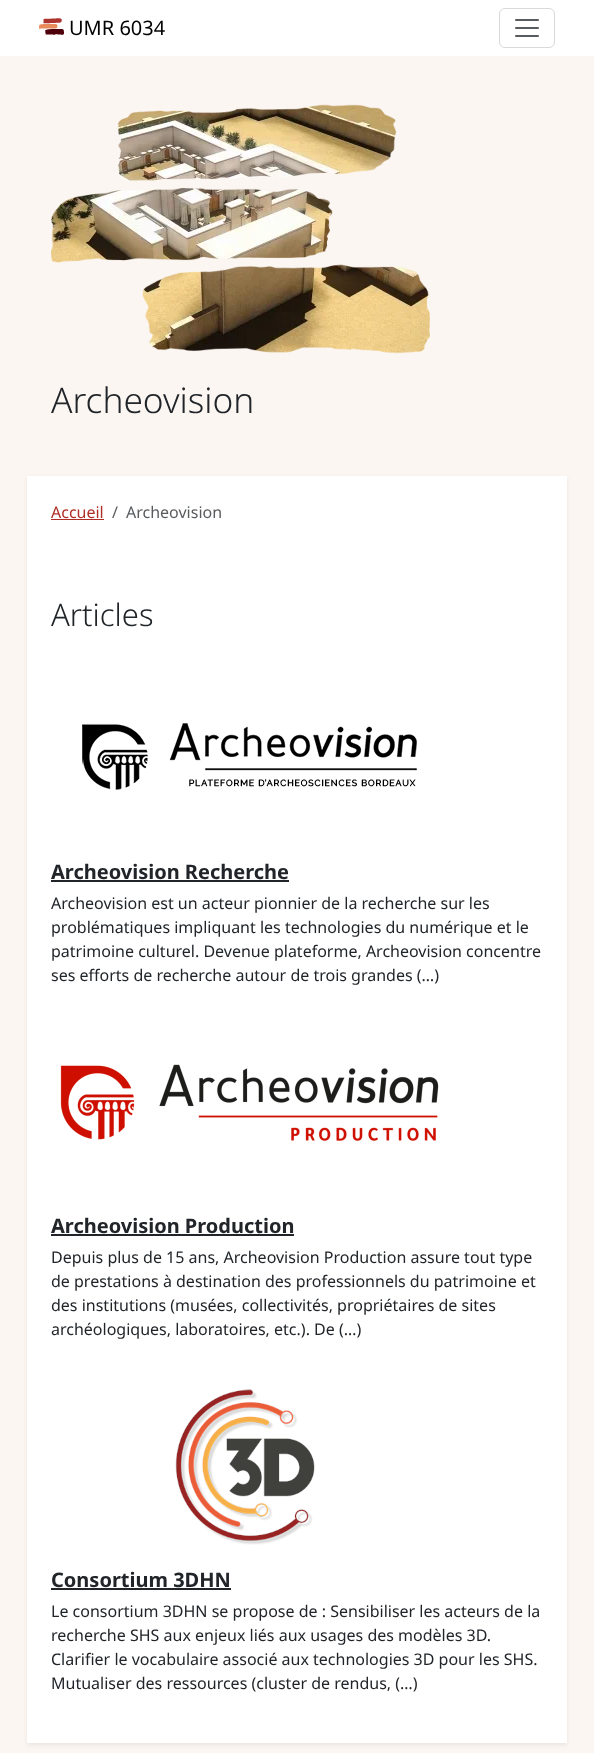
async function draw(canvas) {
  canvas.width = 594;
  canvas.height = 1753;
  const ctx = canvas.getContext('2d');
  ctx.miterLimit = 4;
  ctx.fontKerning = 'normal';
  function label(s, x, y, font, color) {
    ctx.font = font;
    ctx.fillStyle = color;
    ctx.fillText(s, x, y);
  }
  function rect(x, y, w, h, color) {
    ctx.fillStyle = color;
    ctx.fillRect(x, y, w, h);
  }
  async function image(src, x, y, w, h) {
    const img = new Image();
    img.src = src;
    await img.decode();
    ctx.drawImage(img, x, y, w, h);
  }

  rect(0, 0, 594, 1753, '#fbf6f2');
  rect(0, 0, 594, 56, '#fff');
  await image('assets/img1.png', 39, 18, 25, 17);
  label('UMR 6034', 69, 35, '20px Noto Sans', '#000');
  ctx.beginPath();
  ctx.roundRect(499.5, 8.5, 55, 39, 5.5);
  ctx.strokeStyle = '#d9d9d9';
  ctx.stroke();
  await image('assets/img2.png', 515, 19, 24, 18);
  await image('assets/img3.png', 51, 104, 379, 250);
  label('Archeovision', 51, 413, '300 35.25px Noto Sans', '#212529');
  ctx.fillStyle = '#00000012';
  ctx.filter = 'blur(2px)';
  ctx.beginPath();
  ctx.rect(27, 478, 540, 1267);
  ctx.fill();
  ctx.filter = 'none';
  rect(27, 476, 540, 1267, '#fff');
  label('Accueil', 51, 518, '16px Noto Sans', '#af2e25');
  rect(51, 519, 53, 1, '#af2e25');
  label('/', 112, 518, '16px Noto Sans', '#595c5f');
  label('Archeovision', 126, 518, '16px Noto Sans', '#595c5f');
  label('Articles', 51, 626, '300 31px Noto Sans', '#212529');
  await image('assets/img4.png', 82, 723, 335, 67);
  label('Archeovision Recherche', 51, 879, 'bold 20px Noto Sans', '#212529');
  rect(51, 880, 238, 2, '#212529');
  label('Archeovision est un acteur pionnier de la recherche sur les', 51, 909, '16px Noto Sans', '#212529');
  label('problématiques impliquant les technologies du numérique et le', 51, 933, '16px Noto Sans', '#212529');
  label('patrimoine culturel. Devenue plateforme, Archeovision concentre', 51, 957, '16px Noto Sans', '#212529');
  label('ses efforts de recherche autour de trois grandes (…)', 51, 981, '16px Noto Sans', '#212529');
  await image('assets/img5.png', 60, 1064, 379, 77);
  label('Archeovision Production', 51, 1233, 'bold 20px Noto Sans', '#212529');
  rect(51, 1234, 243, 2, '#212529');
  label('Depuis plus de 15 ans, Archeovision Production assure tout type', 51, 1263, '16px Noto Sans', '#212529');
  label('de prestations à destination des professionnels du patrimoine et', 51, 1287, '16px Noto Sans', '#212529');
  label('des institutions (musées, collectivités, propriétaires de sites', 51, 1311, '16px Noto Sans', '#212529');
  label('archéologiques, laboratoires, etc.). De (…)', 51, 1335, '16px Noto Sans', '#212529');
  await image('assets/img6.png', 175, 1389, 140, 156);
  label('Consortium 3DHN', 51, 1587, 'bold 20px Noto Sans', '#212529');
  rect(51, 1588, 180, 2, '#212529');
  label('Le consortium 3DHN se propose de : Sensibiliser les acteurs de la', 51, 1617, '16px Noto Sans', '#212529');
  label('recherche SHS aux enjeux liés aux usages des modèles 3D.', 51, 1641, '16px Noto Sans', '#212529');
  label('Clarifier le vocabulaire associé aux technologies 3D pour les SHS.', 51, 1665, '16px Noto Sans', '#212529');
  label('Mutualiser des ressources (cluster de rendus, (…)', 51, 1689, '16px Noto Sans', '#212529');
}

draw(document.querySelector('canvas'));
